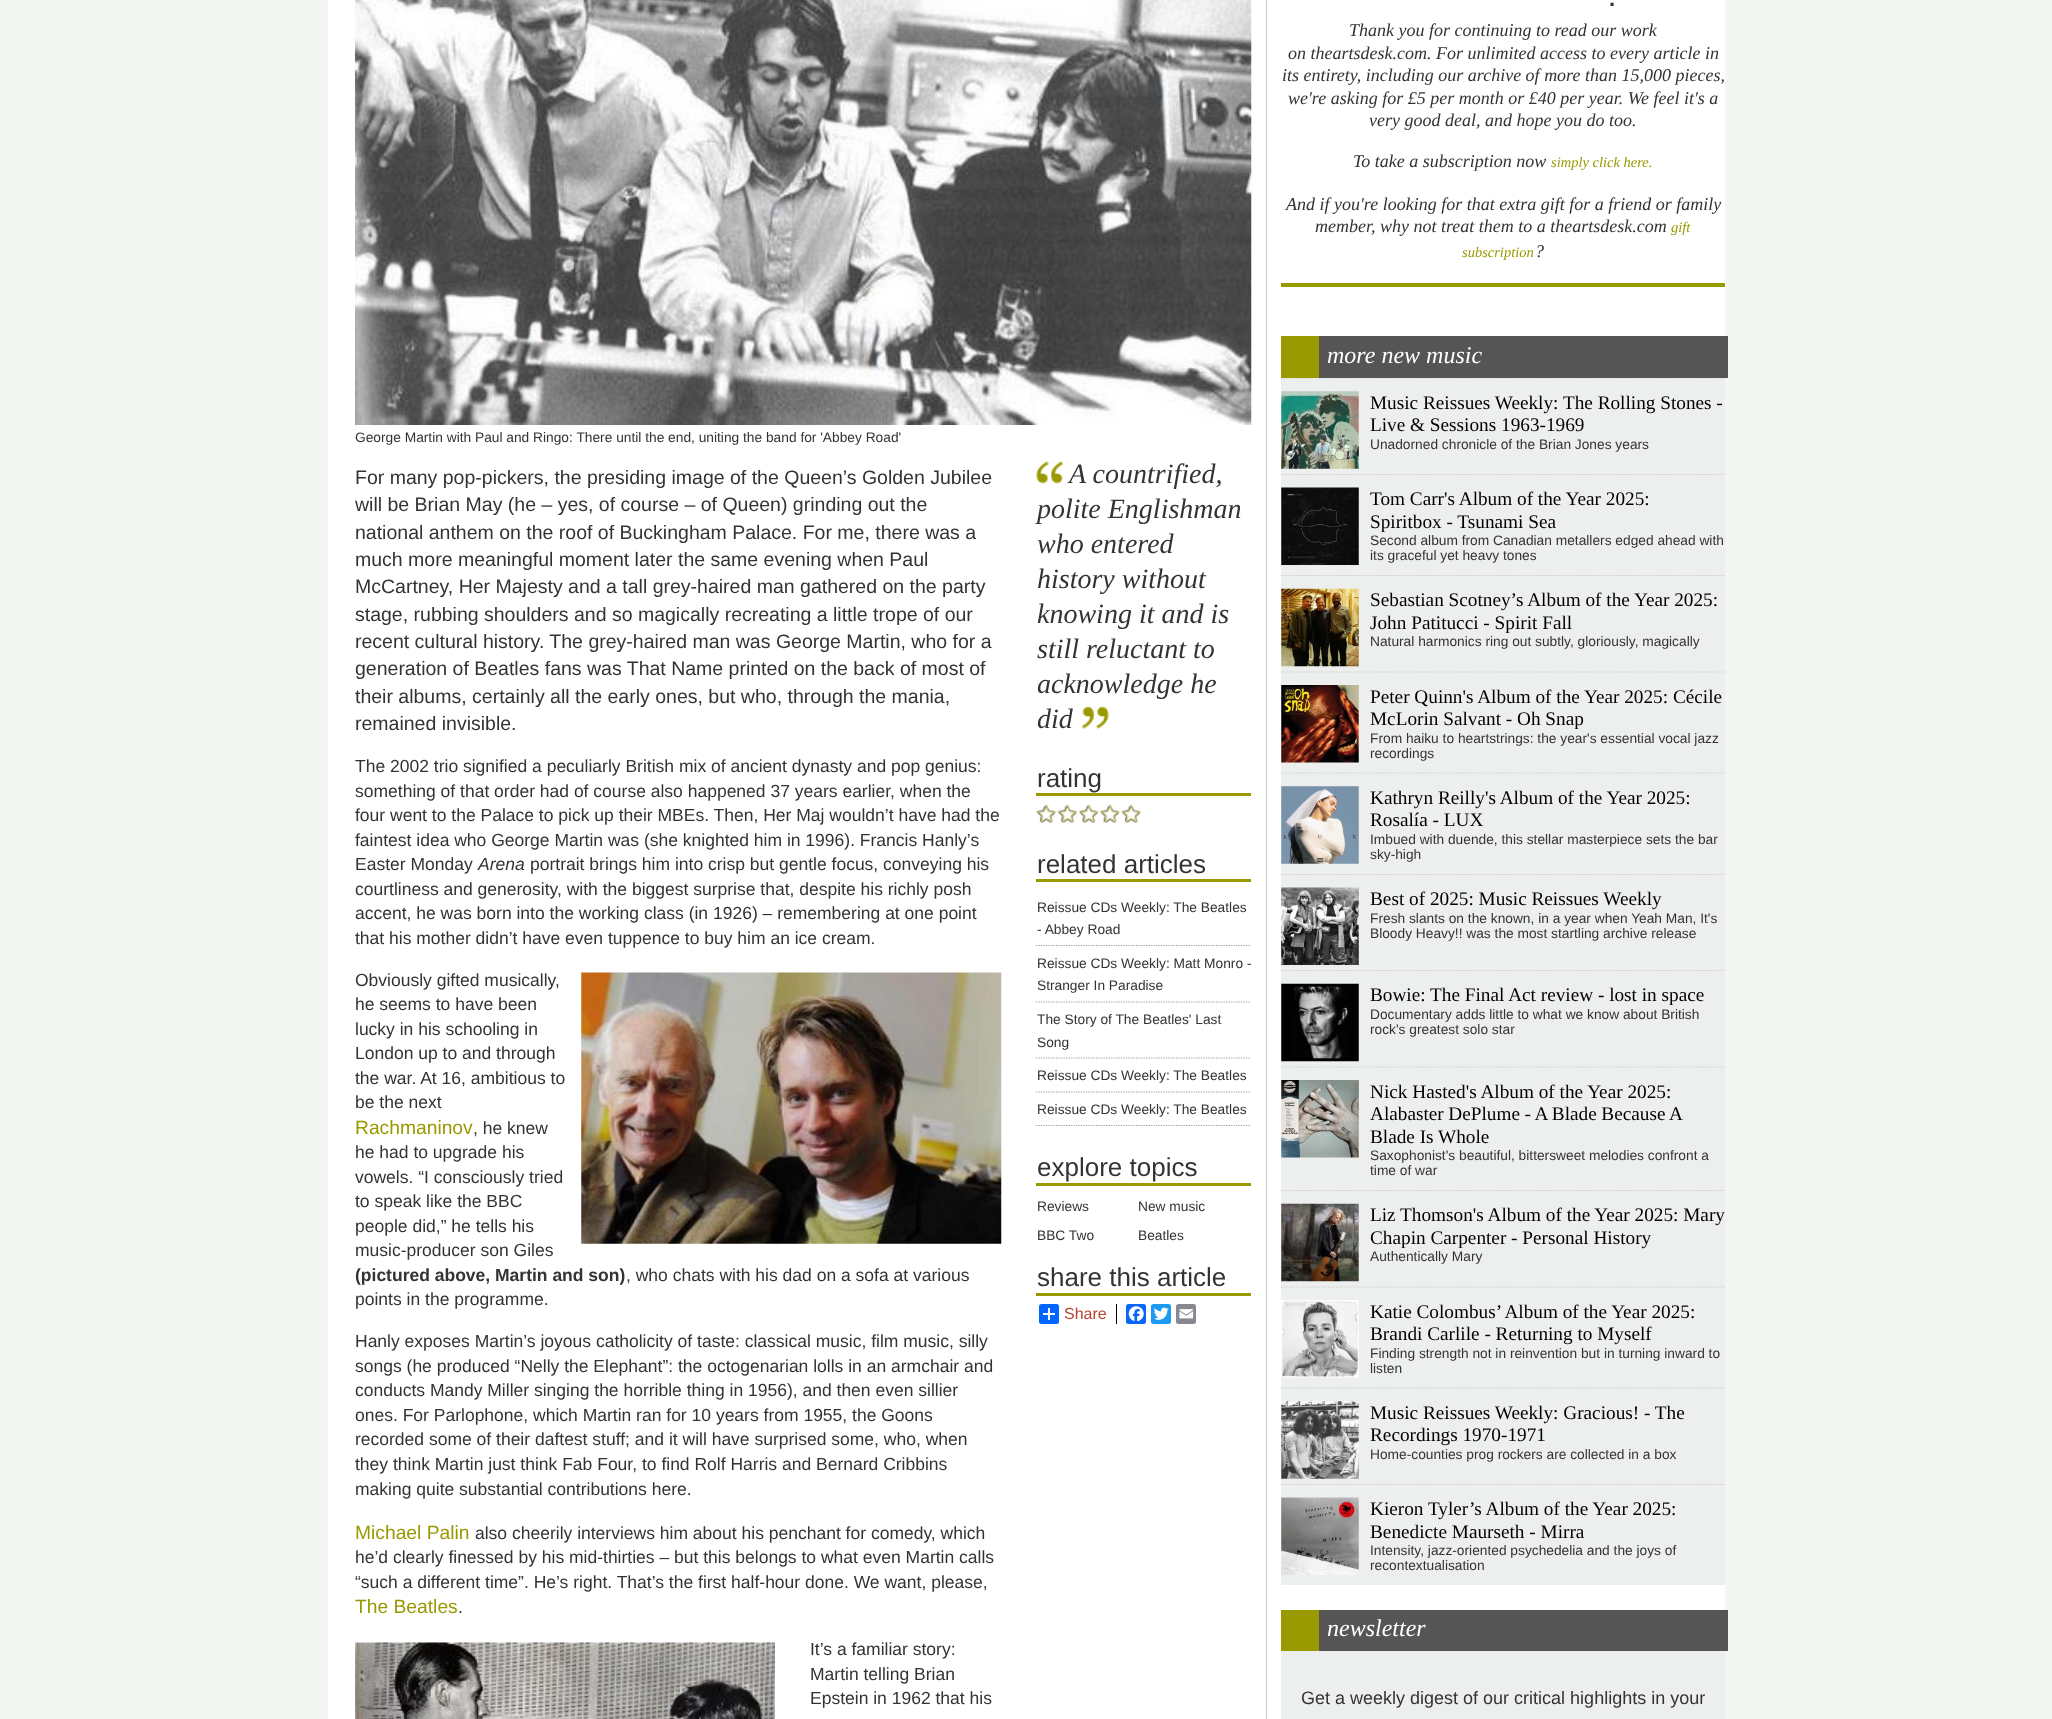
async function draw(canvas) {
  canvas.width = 2052;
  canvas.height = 1719;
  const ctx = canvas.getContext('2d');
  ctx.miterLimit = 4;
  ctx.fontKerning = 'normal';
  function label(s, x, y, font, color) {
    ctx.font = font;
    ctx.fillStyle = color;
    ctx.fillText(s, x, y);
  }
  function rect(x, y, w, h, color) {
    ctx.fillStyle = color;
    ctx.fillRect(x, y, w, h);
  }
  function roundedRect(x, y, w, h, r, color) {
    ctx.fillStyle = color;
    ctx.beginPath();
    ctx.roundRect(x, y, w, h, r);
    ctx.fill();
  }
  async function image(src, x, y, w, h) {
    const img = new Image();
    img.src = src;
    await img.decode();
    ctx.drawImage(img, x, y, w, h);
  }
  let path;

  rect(0, 0, 2052, 1719, '#f4f6f4');
  rect(328, 0, 1397, 1719, '#fff');
  rect(1266, 0, 1, 1719, '#ccc');
  await image('assets/img1.png', 355, 0, 897, 425);
  label('George Martin with Paul and Ringo: There until the end, uniting the band for \'Abbey Road\'', 355, 442, '13.75px Liberation Sans', '#333');
  label('For many pop-pickers, the presiding image of the Queen’s Golden Jubilee', 355, 484, '19.5px Liberation Sans', '#333');
  label('will be Brian May (he – yes, of course – of Queen) grinding out the', 355, 511, '19.5px Liberation Sans', '#333');
  label('national anthem on the roof of Buckingham Palace. For me, there was a', 355, 539, '19.5px Liberation Sans', '#333');
  label('much more meaningful moment later the same evening when Paul', 355, 566, '19.5px Liberation Sans', '#333');
  label('McCartney, Her Majesty and a tall grey-haired man gathered on the party', 355, 593, '19.5px Liberation Sans', '#333');
  label('stage, rubbing shoulders and so magically recreating a little trope of our', 355, 621, '19.5px Liberation Sans', '#333');
  label('recent cultural history. The grey-haired man was George Martin, who for a', 355, 648, '19.5px Liberation Sans', '#333');
  label('generation of Beatles fans was That Name printed on the back of most of', 355, 675, '19.5px Liberation Sans', '#333');
  label('their albums, certainly all the early ones, but who, through the mania,', 355, 703, '19.5px Liberation Sans', '#333');
  label('remained invisible.', 355, 730, '19.5px Liberation Sans', '#333');
  label('The 2002 trio signified a peculiarly British mix of ancient dynasty and pop genius:', 355, 772, '17.5px Liberation Sans', '#333');
  label('something of that order had of course also happened 37 years earlier, when the', 355, 797, '17.5px Liberation Sans', '#333');
  label('four went to the Palace to pick up their MBEs. Then, Her Maj wouldn’t have had the', 355, 821, '17.5px Liberation Sans', '#333');
  label('faintest idea who George Martin was (she knighted him in 1996). Francis Hanly’s', 355, 846, '17.5px Liberation Sans', '#333');
  label('Easter Monday', 355, 870, '17.5px Liberation Sans', '#333');
  label('Arena', 478, 870, 'italic 17.5px Liberation Sans', '#333');
  label('portrait brings him into crisp but gentle focus, conveying his', 530, 870, '17.5px Liberation Sans', '#333');
  label('courtliness and generosity, with the biggest surprise that, despite his richly posh', 355, 895, '17.5px Liberation Sans', '#333');
  label('accent, he was born into the working class (in 1926) – remembering at one point', 355, 919, '17.5px Liberation Sans', '#333');
  label('that his mother didn’t have even tuppence to buy him an ice cream.', 355, 944, '17.5px Liberation Sans', '#333');
  label('Obviously gifted musically,', 355, 986, '17.5px Liberation Sans', '#333');
  await image('assets/img2.png', 581, 972, 421, 272);
  label('he seems to have been', 355, 1010, '17.5px Liberation Sans', '#333');
  label('lucky in his schooling in', 355, 1035, '17.5px Liberation Sans', '#333');
  label('London up to and through', 355, 1059, '17.5px Liberation Sans', '#333');
  label('the war. At 16, ambitious to', 355, 1084, '17.5px Liberation Sans', '#333');
  label('be the next', 355, 1108, '17.5px Liberation Sans', '#333');
  label('Rachmaninov', 355, 1134, '19.25px Liberation Sans', '#990');
  label(', he knew', 473, 1134, '17.5px Liberation Sans', '#333');
  label('he had to upgrade his', 355, 1158, '17.5px Liberation Sans', '#333');
  label('vowels. “I consciously tried', 355, 1183, '17.5px Liberation Sans', '#333');
  label('to speak like the BBC', 355, 1207, '17.5px Liberation Sans', '#333');
  label('people did,” he tells his', 355, 1232, '17.5px Liberation Sans', '#333');
  label('music-producer son Giles', 355, 1256, '17.5px Liberation Sans', '#333');
  label('(pictured above, Martin and son)', 355, 1281, 'bold 17.5px Liberation Sans', '#333');
  label(', who chats with his dad on a sofa at various', 626, 1281, '17.5px Liberation Sans', '#333');
  label('points in the programme.', 355, 1305, '17.5px Liberation Sans', '#333');
  label('Hanly exposes Martin’s joyous catholicity of taste: classical music, film music, silly', 355, 1347, '17.5px Liberation Sans', '#333');
  label('songs (he produced “Nelly the Elephant”: the octogenarian lolls in an armchair and', 355, 1372, '17.5px Liberation Sans', '#333');
  label('conducts Mandy Miller singing the horrible thing in 1956), and then even sillier', 355, 1396, '17.5px Liberation Sans', '#333');
  label('ones. For Parlophone, which Martin ran for 10 years from 1955, the Goons', 355, 1421, '17.5px Liberation Sans', '#333');
  label('recorded some of their daftest stuff; and it will have surprised some, who, when', 355, 1445, '17.5px Liberation Sans', '#333');
  label('they think Martin just think Fab Four, to find Rolf Harris and Bernard Cribbins', 355, 1470, '17.5px Liberation Sans', '#333');
  label('making quite substantial contributions here.', 355, 1495, '17.5px Liberation Sans', '#333');
  label('Michael Palin', 355, 1539, '19.25px Liberation Sans', '#990');
  label('also cheerily interviews him about his penchant for comedy, which', 475, 1539, '17.5px Liberation Sans', '#333');
  label('he’d clearly finessed by his mid-thirties – but this belongs to what even Martin calls', 355, 1563, '17.5px Liberation Sans', '#333');
  label('“such a different time”. He’s right. That’s the first half-hour done. We want, please,', 355, 1588, '17.5px Liberation Sans', '#333');
  label('The Beatles', 355, 1613, '19.25px Liberation Sans', '#990');
  label('.', 458, 1613, '17.5px Liberation Sans', '#333');
  await image('assets/img3.png', 355, 1642, 420, 77);
  label('It’s a familiar story:', 810, 1655, '17.5px Liberation Sans', '#333');
  label('Martin telling Brian', 810, 1680, '17.5px Liberation Sans', '#333');
  label('Epstein in 1962 that his', 810, 1704, '17.5px Liberation Sans', '#333');
  await image('assets/img4.png', 1036, 461, 28, 23);
  label('A countrified,', 1069, 483, 'italic 28px Liberation Serif', '#333');
  label('polite Englishman', 1037, 518, 'italic 28px Liberation Serif', '#333');
  label('who entered', 1037, 553, 'italic 28px Liberation Serif', '#333');
  label('history without', 1037, 588, 'italic 28px Liberation Serif', '#333');
  label('knowing it and is', 1037, 623, 'italic 28px Liberation Serif', '#333');
  label('still reluctant to', 1037, 658, 'italic 28px Liberation Serif', '#333');
  label('acknowledge he', 1037, 693, 'italic 28px Liberation Serif', '#333');
  label('did', 1037, 728, 'italic 28px Liberation Serif', '#333');
  await image('assets/img5.png', 1081, 706, 28, 23);
  rect(1036, 793, 215, 3, '#990');
  label('rating', 1037, 787, '26px Liberation Sans', '#333');
  await image('assets/img6.png', 1036, 805, 20, 18);
  await image('assets/img7.png', 1036, 804, 21, 19);
  await image('assets/img8.png', 1057, 805, 20, 18);
  await image('assets/img9.png', 1057, 804, 21, 19);
  await image('assets/img10.png', 1079, 805, 19, 18);
  await image('assets/img11.png', 1079, 804, 20, 19);
  await image('assets/img12.png', 1100, 804, 19, 19);
  await image('assets/img13.png', 1100, 804, 20, 19);
  await image('assets/img6.png', 1121, 805, 20, 18);
  await image('assets/img7.png', 1121, 804, 21, 19);
  rect(1036, 879, 215, 3, '#990');
  label('related articles', 1037, 873, '26px Liberation Sans', '#333');
  path = new Path2D('M1036 945.5H1251');
  ctx.strokeStyle = '#999';
  ctx.lineWidth = 1.2;
  ctx.setLineDash([1.25, 1.25]);
  ctx.stroke(path);
  label('Reissue CDs Weekly: The Beatles', 1037, 912, '13.75px Liberation Sans', '#333');
  label('- Abbey Road', 1037, 934, '13.75px Liberation Sans', '#333');
  path = new Path2D('M1036 1002H1251');
  ctx.stroke(path);
  label('Reissue CDs Weekly: Matt Monro -', 1037, 968, '13.75px Liberation Sans', '#333');
  label('Stranger In Paradise', 1037, 990, '13.75px Liberation Sans', '#333');
  path = new Path2D('M1036 1058H1251');
  ctx.stroke(path);
  label('The Story of The Beatles\' Last', 1037, 1024, '13.75px Liberation Sans', '#333');
  label('Song', 1037, 1047, '13.75px Liberation Sans', '#333');
  path = new Path2D('M1036 1092H1251');
  ctx.stroke(path);
  label('Reissue CDs Weekly: The Beatles', 1037, 1080, '13.75px Liberation Sans', '#333');
  path = new Path2D('M1036 1125.5H1251');
  ctx.stroke(path);
  label('Reissue CDs Weekly: The Beatles', 1037, 1114, '13.75px Liberation Sans', '#333');
  rect(1036, 1183, 215, 3, '#990');
  label('explore topics', 1037, 1176, '26px Liberation Sans', '#333');
  label('Reviews', 1037, 1211, '13.75px Liberation Sans', '#333');
  label('New music', 1138, 1211, '13.75px Liberation Sans', '#333');
  label('BBC Two', 1037, 1240, '13.75px Liberation Sans', '#333');
  label('Beatles', 1138, 1240, '13.75px Liberation Sans', '#333');
  rect(1036, 1293, 215, 3, '#990');
  label('share this article', 1037, 1286, '26px Liberation Sans', '#333');
  roundedRect(1039, 1304, 20, 20, 2.5, '#0166ff');
  rect(1048, 1308, 2, 12, '#fff');
  rect(1043, 1313, 12, 2, '#fff');
  label('Share', 1064, 1319, '16px Liberation Sans', '#b4442f');
  rect(1116, 1304, 1, 20, '#000');
  roundedRect(1126, 1304, 20, 20, 2.5, '#0866ff');
  await image('assets/img14.png', 1128, 1306, 16, 16);
  roundedRect(1151, 1304, 20, 20, 2.5, '#1d9bf0');
  await image('assets/img15.png', 1154, 1307, 15, 13);
  roundedRect(1176, 1304, 20, 20, 2.5, '#888990');
  await image('assets/img16.png', 1179, 1309, 15, 10);
  rect(1281, 283, 444, 4, '#990');
  label('.', 1609, 6, 'bold 22px Liberation Sans', '#333');
  label('Thank you for continuing to read our work', 1349, 36, 'italic 18px Liberation Serif', '#333');
  label('on theartsdesk.com. For unlimited access to every article in', 1288, 59, 'italic 18px Liberation Serif', '#333');
  label('its entirety, including our archive of more than 15,000 pieces,', 1282, 81, 'italic 18px Liberation Serif', '#333');
  label('we\'re asking for £5 per month or £40 per year. We feel it\'s a', 1288, 104, 'italic 18px Liberation Serif', '#333');
  label('very good deal, and hope you do too.', 1369, 126, 'italic 18px Liberation Serif', '#333');
  label('To take a subscription now', 1353, 167, 'italic 18px Liberation Serif', '#333');
  label('simply click here.', 1551, 167, 'italic 14.5px Liberation Serif', '#990');
  label('And if you\'re looking for that extra gift for a friend or family', 1286, 210, 'italic 18px Liberation Serif', '#333');
  label('member, why not treat them to a theartsdesk.com', 1315, 232, 'italic 18px Liberation Serif', '#333');
  label('gift', 1671, 232, 'italic 14.5px Liberation Serif', '#990');
  label('subscription', 1462, 257, 'italic 14.5px Liberation Serif', '#990');
  label('?', 1535, 257, 'italic 18px Liberation Serif', '#333');
  rect(1281, 378, 444, 1207, '#edefef');
  path = new Path2D('M1281 378H1725');
  ctx.strokeStyle = '#ccc';
  ctx.stroke(path);
  rect(1319, 336, 409, 42, '#555');
  rect(1281, 336, 38, 42, '#990');
  label('more new music', 1327, 363, 'italic 24px Liberation Serif', '#fff');
  await image('assets/img17.png', 1281, 391, 78, 78);
  label('Music Reissues Weekly: The Rolling Stones -', 1370, 409, '19.25px Liberation Serif', '#000');
  label('Live & Sessions 1963-1969', 1370, 431, '19.25px Liberation Serif', '#000');
  label('Unadorned chronicle of the Brian Jones years', 1370, 449, '13.75px Liberation Sans', '#333');
  path = new Path2D('M1281 474.5H1725');
  ctx.stroke(path);
  await image('assets/img18.png', 1281, 487, 78, 78);
  label('Tom Carr\'s Album of the Year 2025:', 1370, 505, '19.25px Liberation Serif', '#000');
  label('Spiritbox - Tsunami Sea', 1370, 528, '19.25px Liberation Serif', '#000');
  label('Second album from Canadian metallers edged ahead with', 1370, 545, '13.75px Liberation Sans', '#333');
  label('its graceful yet heavy tones', 1370, 560, '13.75px Liberation Sans', '#333');
  path = new Path2D('M1281 575.5H1725');
  ctx.stroke(path);
  await image('assets/img19.png', 1281, 588, 78, 79);
  label('Sebastian Scotney’s Album of the Year 2025:', 1370, 606, '19.25px Liberation Serif', '#000');
  label('John Patitucci - Spirit Fall', 1370, 629, '19.25px Liberation Serif', '#000');
  label('Natural harmonics ring out subtly, gloriously, magically', 1370, 646, '13.75px Liberation Sans', '#333');
  path = new Path2D('M1281 672H1725');
  ctx.stroke(path);
  await image('assets/img20.png', 1281, 685, 78, 78);
  label('Peter Quinn\'s Album of the Year 2025: Cécile', 1370, 703, '19.25px Liberation Serif', '#000');
  label('McLorin Salvant - Oh Snap', 1370, 725, '19.25px Liberation Serif', '#000');
  label('From haiku to heartstrings: the year\'s essential vocal jazz', 1370, 743, '13.75px Liberation Sans', '#333');
  label('recordings', 1370, 758, '13.75px Liberation Sans', '#333');
  path = new Path2D('M1281 773H1725');
  ctx.stroke(path);
  await image('assets/img21.png', 1281, 786, 78, 78);
  label('Kathryn Reilly\'s Album of the Year 2025:', 1370, 804, '19.25px Liberation Serif', '#000');
  label('Rosalía - LUX', 1370, 826, '19.25px Liberation Serif', '#000');
  label('Imbued with duende, this stellar masterpiece sets the bar', 1370, 844, '13.75px Liberation Sans', '#333');
  label('sky-high', 1370, 859, '13.75px Liberation Sans', '#333');
  path = new Path2D('M1281 874.5H1725');
  ctx.stroke(path);
  await image('assets/img22.png', 1281, 887, 78, 78);
  label('Best of 2025: Music Reissues Weekly', 1370, 905, '19.25px Liberation Serif', '#000');
  label('Fresh slants on the known, in a year when Yeah Man, It\'s', 1370, 923, '13.75px Liberation Sans', '#333');
  label('Bloody Heavy!! was the most startling archive release', 1370, 938, '13.75px Liberation Sans', '#333');
  path = new Path2D('M1281 970.5H1725');
  ctx.stroke(path);
  await image('assets/img23.png', 1281, 983, 78, 79);
  label('Bowie: The Final Act review - lost in space', 1370, 1001, '19.25px Liberation Serif', '#000');
  label('Documentary adds little to what we know about British', 1370, 1019, '13.75px Liberation Sans', '#333');
  label('rock\'s greatest solo star', 1370, 1034, '13.75px Liberation Sans', '#333');
  path = new Path2D('M1281 1067H1725');
  ctx.stroke(path);
  await image('assets/img24.png', 1281, 1080, 78, 78);
  label('Nick Hasted\'s Album of the Year 2025:', 1370, 1098, '19.25px Liberation Serif', '#000');
  ctx.wordSpacing = '-0.25px';
  label('Alabaster DePlume - A Blade Because A', 1370, 1120, '19.25px Liberation Serif', '#000');
  ctx.wordSpacing = '0px';
  label('Blade Is Whole', 1370, 1143, '19.25px Liberation Serif', '#000');
  label('Saxophonist\'s beautiful, bittersweet melodies confront a', 1370, 1160, '13.75px Liberation Sans', '#333');
  label('time of war', 1370, 1175, '13.75px Liberation Sans', '#333');
  path = new Path2D('M1281 1190.5H1725');
  ctx.stroke(path);
  await image('assets/img25.png', 1281, 1203, 78, 79);
  label('Liz Thomson\'s Album of the Year 2025: Mary', 1370, 1221, '19.25px Liberation Serif', '#000');
  label('Chapin Carpenter - Personal History', 1370, 1244, '19.25px Liberation Serif', '#000');
  label('Authentically Mary', 1370, 1261, '13.75px Liberation Sans', '#333');
  path = new Path2D('M1281 1287H1725');
  ctx.stroke(path);
  await image('assets/img26.png', 1281, 1300, 78, 78);
  label('Katie Colombus’ Album of the Year 2025:', 1370, 1318, '19.25px Liberation Serif', '#000');
  label('Brandi Carlile - Returning to Myself', 1370, 1340, '19.25px Liberation Serif', '#000');
  label('Finding strength not in reinvention but in turning inward to', 1370, 1358, '13.75px Liberation Sans', '#333');
  label('listen', 1370, 1373, '13.75px Liberation Sans', '#333');
  path = new Path2D('M1281 1388H1725');
  ctx.stroke(path);
  await image('assets/img27.png', 1281, 1401, 78, 78);
  label('Music Reissues Weekly: Gracious! - The', 1370, 1419, '19.25px Liberation Serif', '#000');
  label('Recordings 1970-1971', 1370, 1441, '19.25px Liberation Serif', '#000');
  label('Home-counties prog rockers are collected in a box', 1370, 1459, '13.75px Liberation Sans', '#333');
  path = new Path2D('M1281 1484.5H1725');
  ctx.stroke(path);
  await image('assets/img28.png', 1281, 1497, 78, 78);
  label('Kieron Tyler’s Album of the Year 2025:', 1370, 1515, '19.25px Liberation Serif', '#000');
  label('Benedicte Maurseth - Mirra', 1370, 1538, '19.25px Liberation Serif', '#000');
  label('Intensity, jazz-oriented psychedelia and the joys of', 1370, 1555, '13.75px Liberation Sans', '#333');
  label('recontextualisation', 1370, 1570, '13.75px Liberation Sans', '#333');
  rect(1319, 1610, 409, 41, '#555');
  rect(1281, 1610, 38, 41, '#990');
  label('newsletter', 1327, 1636, 'italic 24px Liberation Serif', '#fff');
  rect(1281, 1651, 444, 68, '#edefef');
  label('Get a weekly digest of our critical highlights in your', 1301, 1704, '18px Liberation Sans', '#333');
}

draw(document.querySelector('canvas'));
